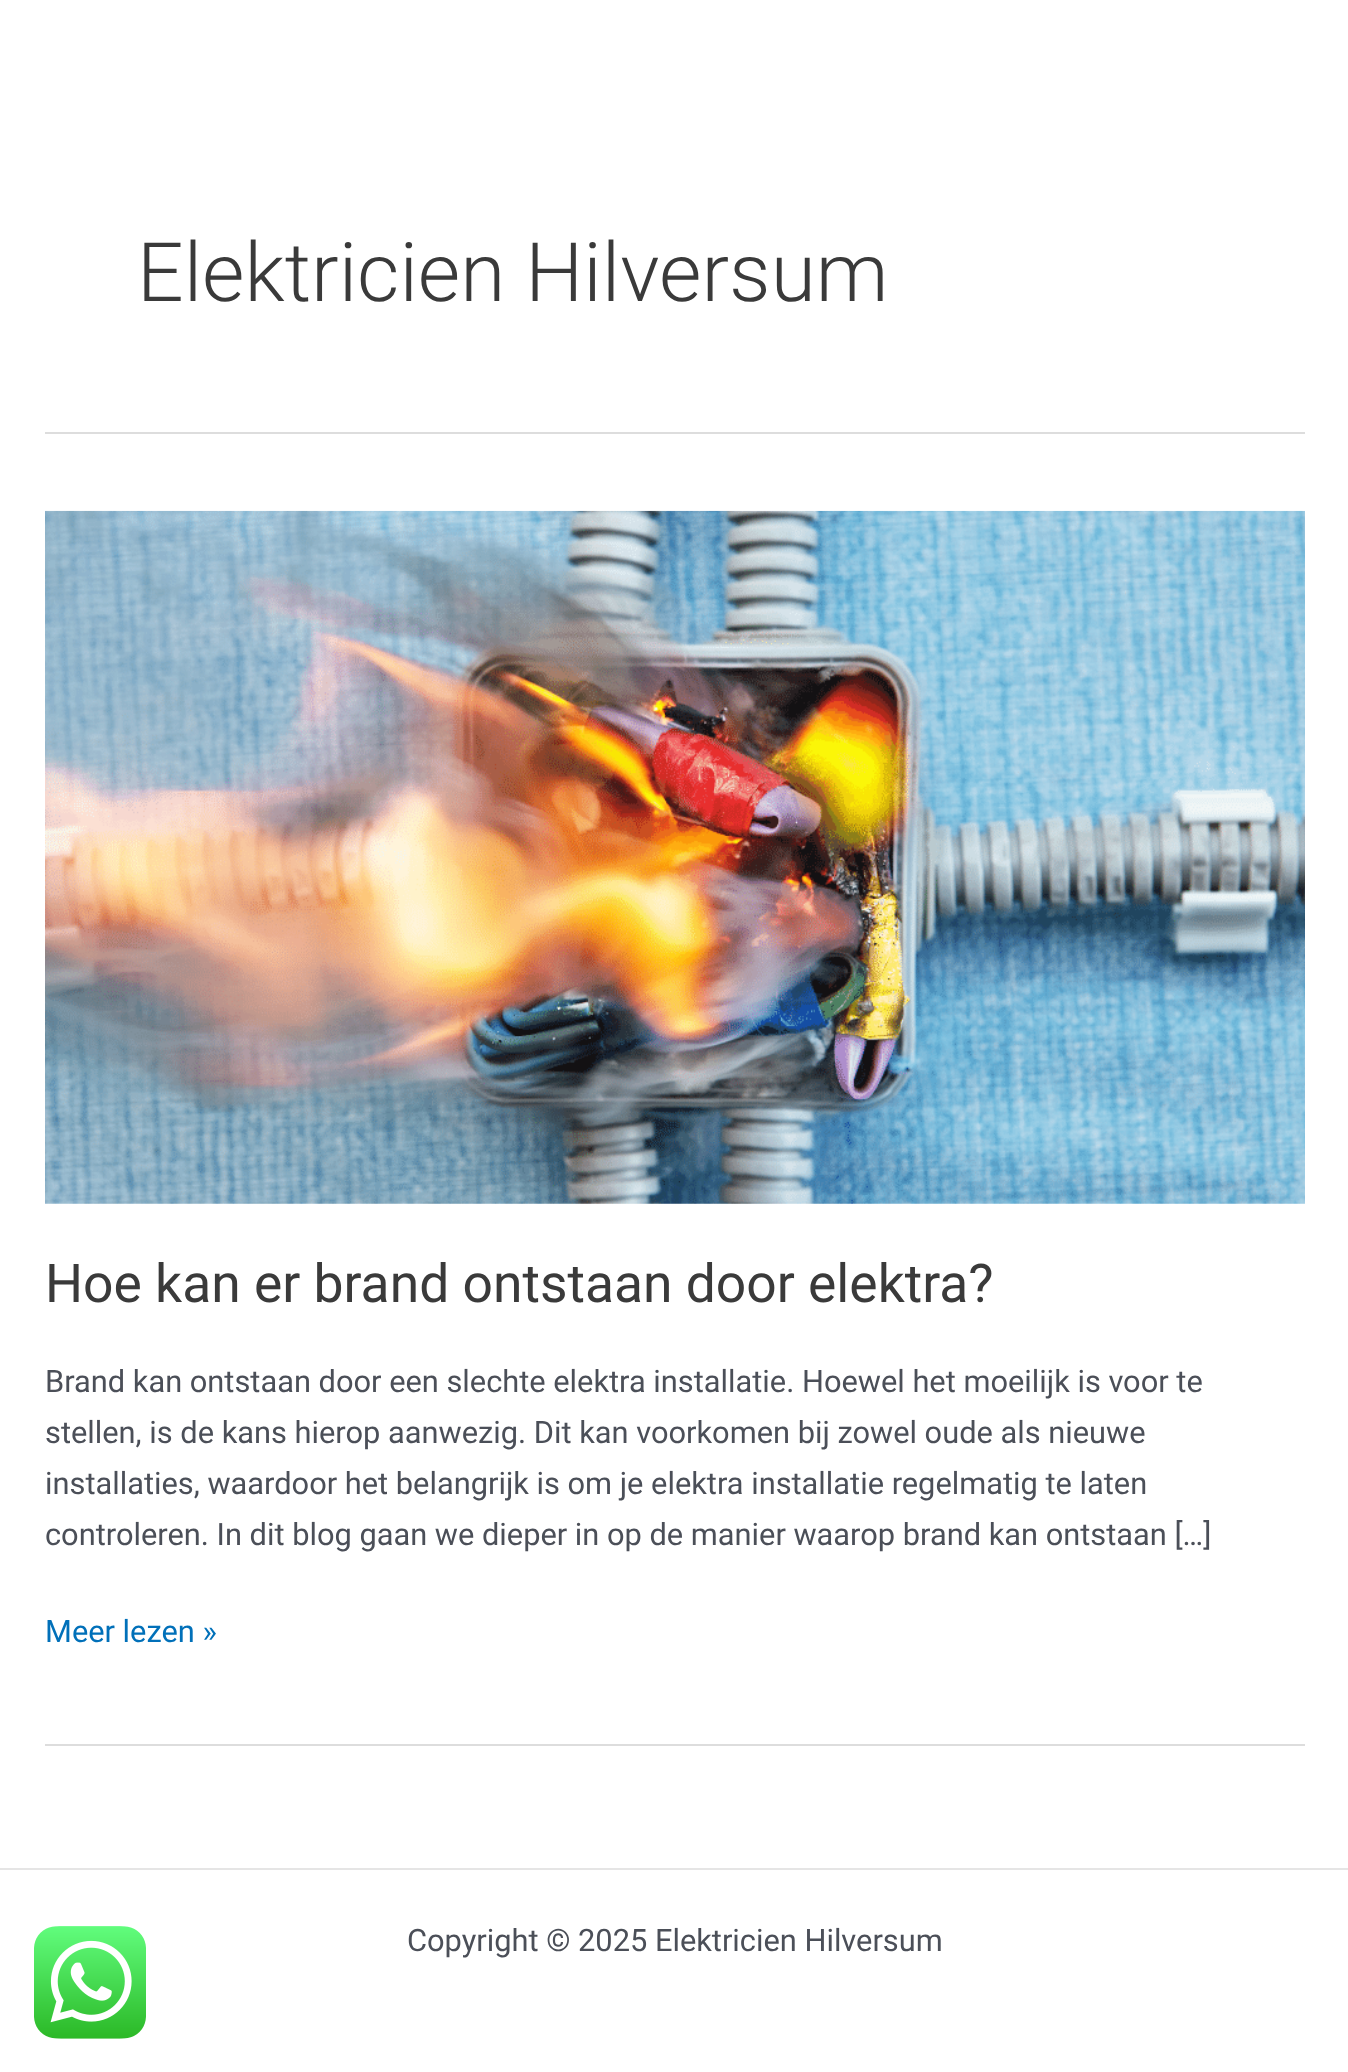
async function draw(canvas) {
  canvas.width = 1348;
  canvas.height = 2072;
  const ctx = canvas.getContext('2d');
  ctx.miterLimit = 4;
  ctx.fontKerning = 'normal';
  function label(s, x, y, font, color) {
    ctx.font = font;
    ctx.fillStyle = color;
    ctx.fillText(s, x, y);
  }
  function rect(x, y, w, h, color) {
    ctx.fillStyle = color;
    ctx.fillRect(x, y, w, h);
  }
  async function image(src, x, y, w, h) {
    const img = new Image();
    img.src = src;
    await img.decode();
    ctx.drawImage(img, x, y, w, h);
  }

  rect(0, 0, 1348, 2072, '#fff');
  rect(45, 432, 1260, 2, '#ddd');
  label('Elektricien Hilversum', 137, 301, '300 82px Roboto', '#3a3a3a');
  rect(45, 1744, 1260, 2, '#ddd');
  await image('assets/img1.png', 45, 510, 1260, 694);
  label('Hoe kan er brand ontstaan door elektra?', 45, 1302, '53.4px Roboto', '#3a3a3a');
  label('Brand kan ontstaan door een slechte elektra installatie. Hoewel het moeilijk is voor te', 45, 1392, '30.8px Roboto', '#4b4f58');
  label('stellen, is de kans hierop aanwezig. Dit kan voorkomen bij zowel oude als nieuwe', 45, 1443, '30.8px Roboto', '#4b4f58');
  label('installaties, waardoor het belangrijk is om je elektra installatie regelmatig te laten', 45, 1494, '30.8px Roboto', '#4b4f58');
  label('controleren. In dit blog gaan we dieper in op de manier waarop brand kan ontstaan […]', 45, 1545, '30.8px Roboto', '#4b4f58');
  label('Meer lezen »', 45, 1642, '30.8px Roboto', '#0170b9');
  rect(0, 1868, 1348, 2, '#e5e5e5');
  label('Copyright © 2025 Elektricien Hilversum', 407, 1951, '30.8px Roboto', '#4b4f58');
  await image('assets/img2.png', 34, 1926, 112, 113);
}

draw(document.querySelector('canvas'));
